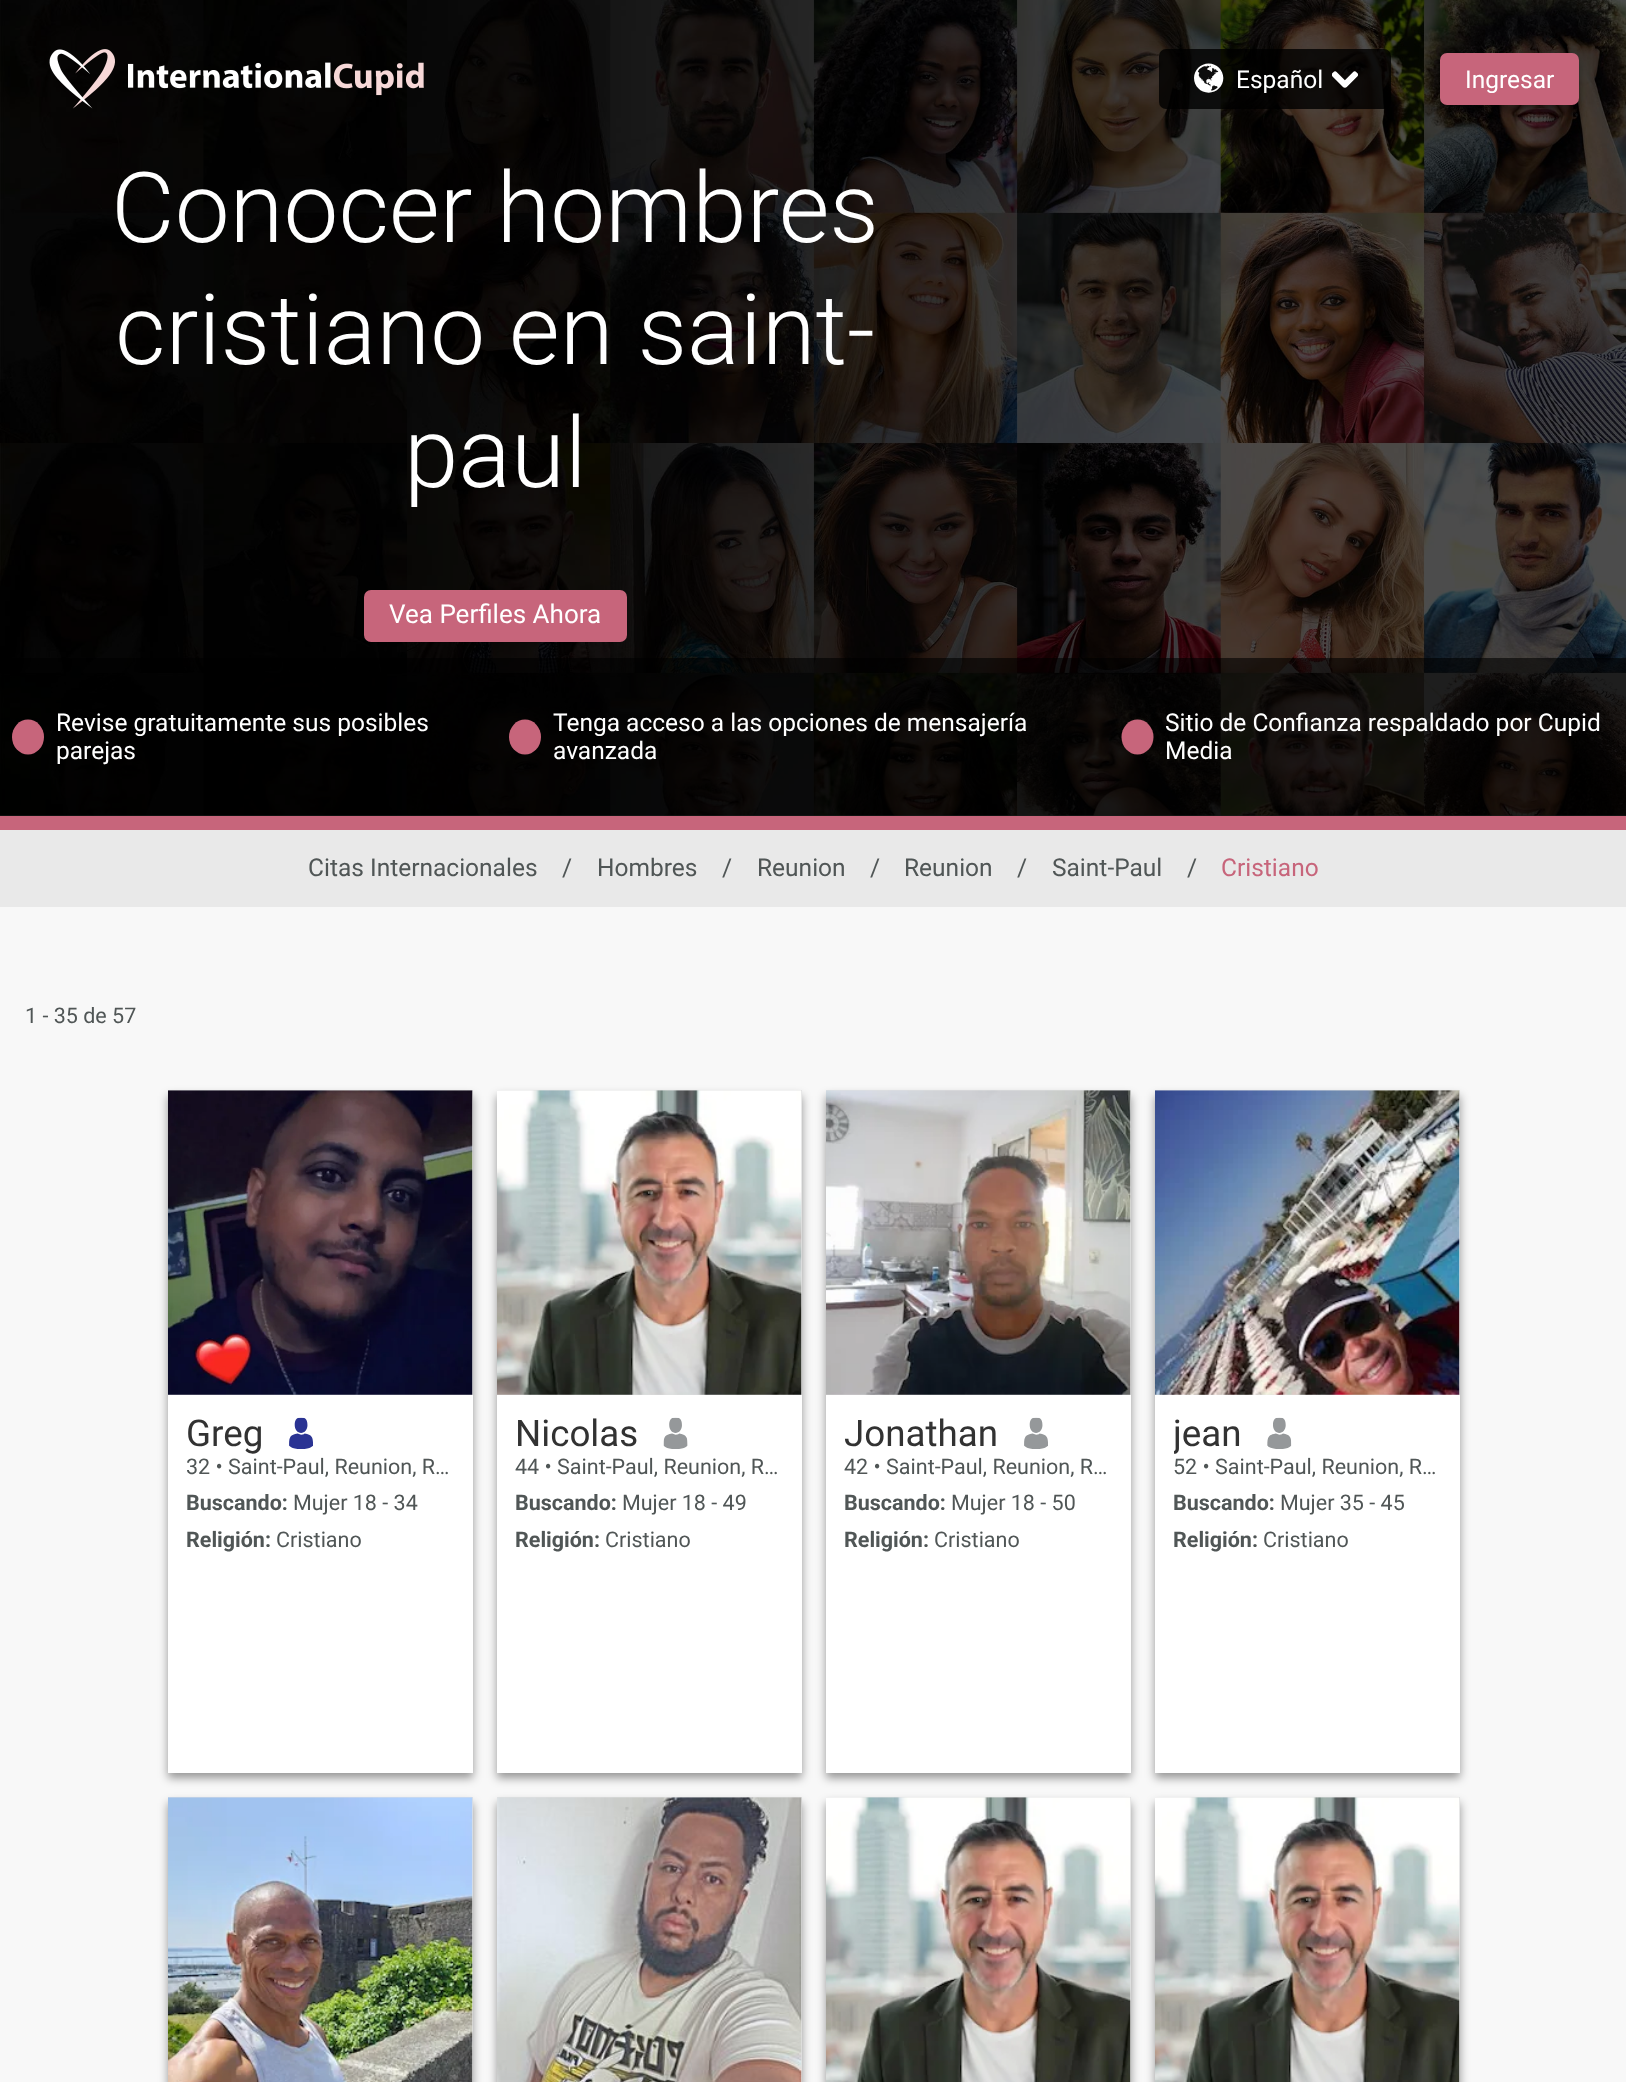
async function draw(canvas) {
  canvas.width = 1626;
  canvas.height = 2082;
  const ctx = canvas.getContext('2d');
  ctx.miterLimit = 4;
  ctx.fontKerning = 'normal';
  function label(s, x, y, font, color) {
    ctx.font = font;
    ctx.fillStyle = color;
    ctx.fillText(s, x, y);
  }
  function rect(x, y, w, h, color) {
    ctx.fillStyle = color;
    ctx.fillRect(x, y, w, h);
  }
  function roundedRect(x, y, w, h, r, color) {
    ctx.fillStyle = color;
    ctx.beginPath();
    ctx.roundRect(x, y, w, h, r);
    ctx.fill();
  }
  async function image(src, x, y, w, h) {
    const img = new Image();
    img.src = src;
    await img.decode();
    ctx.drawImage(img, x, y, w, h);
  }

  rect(0, 0, 1626, 2082, '#f8f8f8');
  rect(0, 815, 1626, 1, '#4d4d4d');
  await image('assets/img5.png', 0, 0, 1626, 816);
  await image('assets/img1.png', 49, 49, 66, 60);
  await image('assets/img2.png', 128, 62, 296, 34);
  roundedRect(1159, 49, 232, 60, 7, '#000000cc');
  await image('assets/img3.png', 1194, 63, 30, 30);
  label('Español', 1236, 88, '24.5px Roboto', '#fff');
  await image('assets/img4.png', 1332, 71, 26, 17);
  ctx.fillStyle = '#00000066';
  ctx.filter = 'blur(5px)';
  ctx.beginPath();
  ctx.roundRect(1440, 58, 139, 52, 7);
  ctx.fill();
  ctx.filter = 'none';
  roundedRect(1440, 53, 139, 52, 7, '#c7657b');
  label('Ingresar', 1465, 88, '24.5px Roboto', '#fff');
  label('Conocer hombres', 111, 242, '300 98px Roboto', '#fff');
  label('cristiano en saint-', 115, 364, '300 98px Roboto', '#fff');
  label('paul', 404, 487, '300 98px Roboto', '#fff');
  roundedRect(364, 590, 263, 52, 7, '#c7657b');
  label('Vea Perfiles Ahora', 389, 623, '26px Roboto', '#fff');
  rect(0, 658, 1626, 158, '#00000099');
  ctx.fillStyle = '#c7657b';
  ctx.beginPath();
  ctx.ellipse(28, 737, 16, 17.5, 0, 0, 2 * Math.PI);
  ctx.fill();
  label('Revise gratuitamente sus posibles', 56, 731, '24.5px Roboto', '#fff');
  label('parejas', 56, 759, '24.5px Roboto', '#fff');
  ctx.fillStyle = '#c7657b';
  ctx.beginPath();
  ctx.ellipse(525, 737, 16, 17.5, 0, 0, 2 * Math.PI);
  ctx.fill();
  label('Tenga acceso a las opciones de mensajería', 553, 731, '24.5px Roboto', '#fff');
  label('avanzada', 553, 759, '24.5px Roboto', '#fff');
  ctx.fillStyle = '#c7657b';
  ctx.beginPath();
  ctx.ellipse(1137.5, 737, 16, 17.5, 0, 0, 2 * Math.PI);
  ctx.fill();
  label('Sitio de Confianza respaldado por Cupid', 1165, 731, '24.5px Roboto', '#fff');
  label('Media', 1165, 759, '24.5px Roboto', '#fff');
  rect(0, 816, 1626, 14, '#c7657b');
  rect(0, 830, 1626, 77, '#e9e9e9');
  label('Citas Internacionales', 308, 876, '24.5px Roboto', '#505656');
  label('/', 562, 876, '24.5px Roboto', '#505656');
  label('Hombres', 597, 876, '24.5px Roboto', '#505656');
  label('/', 722, 876, '24.5px Roboto', '#505656');
  label('Reunion', 757, 876, '24.5px Roboto', '#505656');
  label('/', 870, 876, '24.5px Roboto', '#505656');
  label('Reunion', 904, 876, '24.5px Roboto', '#505656');
  label('/', 1017, 876, '24.5px Roboto', '#505656');
  label('Saint-Paul', 1052, 876, '24.5px Roboto', '#505656');
  label('/', 1187, 876, '24.5px Roboto', '#505656');
  label('Cristiano', 1221, 876, '24.5px Roboto', '#c7657b');
  label('1 - 35 de 57', 25, 1023, '21.5px Roboto', '#505656');
  ctx.fillStyle = '#00000066';
  ctx.filter = 'blur(5px)';
  ctx.beginPath();
  ctx.rect(168, 1096, 305, 682);
  ctx.fill();
  ctx.filter = 'none';
  rect(168, 1395, 305, 378, '#fff');
  rect(168, 1090, 305, 305, '#e0e0e0');
  await image('assets/img6.png', 168, 1090, 305, 305);
  label('Greg', 186, 1446, '36.75px Roboto', '#323232');
  await image('assets/img7.png', 289, 1417, 24, 32);
  label('32 • Saint-Paul, Reunion, R…', 186, 1474, '21.5px Roboto', '#505656');
  label('Buscando:', 186, 1510, 'bold 21.5px Roboto', '#505656');
  label('Mujer 18 - 34', 293, 1510, '21.5px Roboto', '#505656');
  label('Religión:', 186, 1547, 'bold 21.5px Roboto', '#505656');
  label('Cristiano', 276, 1547, '21.5px Roboto', '#505656');
  ctx.fillStyle = '#00000066';
  ctx.filter = 'blur(5px)';
  ctx.beginPath();
  ctx.rect(497, 1096, 305, 682);
  ctx.fill();
  ctx.filter = 'none';
  rect(497, 1395, 305, 378, '#fff');
  rect(497, 1090, 305, 305, '#e0e0e0');
  await image('assets/img8.png', 497, 1090, 305, 305);
  label('Nicolas', 515, 1446, '36.75px Roboto', '#323232');
  await image('assets/img9.png', 663, 1417, 25, 32);
  label('44 • Saint-Paul, Reunion, R…', 515, 1474, '21.5px Roboto', '#505656');
  label('Buscando:', 515, 1510, 'bold 21.5px Roboto', '#505656');
  label('Mujer 18 - 49', 622, 1510, '21.5px Roboto', '#505656');
  label('Religión:', 515, 1547, 'bold 21.5px Roboto', '#505656');
  label('Cristiano', 605, 1547, '21.5px Roboto', '#505656');
  ctx.fillStyle = '#00000066';
  ctx.filter = 'blur(5px)';
  ctx.beginPath();
  ctx.rect(826, 1096, 305, 682);
  ctx.fill();
  ctx.filter = 'none';
  rect(826, 1395, 305, 378, '#fff');
  rect(826, 1090, 305, 305, '#e0e0e0');
  await image('assets/img10.png', 826, 1090, 305, 305);
  label('Jonathan', 844, 1446, '36.75px Roboto', '#323232');
  await image('assets/img11.png', 1024, 1417, 24, 32);
  label('42 • Saint-Paul, Reunion, R…', 844, 1474, '21.5px Roboto', '#505656');
  label('Buscando:', 844, 1510, 'bold 21.5px Roboto', '#505656');
  label('Mujer 18 - 50', 951, 1510, '21.5px Roboto', '#505656');
  label('Religión:', 844, 1547, 'bold 21.5px Roboto', '#505656');
  label('Cristiano', 934, 1547, '21.5px Roboto', '#505656');
  ctx.fillStyle = '#00000066';
  ctx.filter = 'blur(5px)';
  ctx.beginPath();
  ctx.rect(1155, 1096, 305, 682);
  ctx.fill();
  ctx.filter = 'none';
  rect(1155, 1395, 305, 378, '#fff');
  rect(1155, 1090, 305, 305, '#e0e0e0');
  await image('assets/img12.png', 1155, 1090, 305, 305);
  ctx.save();
  ctx.beginPath();
  ctx.rect(1174, 1412, 69, 42);
  ctx.clip();
  label('jean', 1173, 1446, '36.75px Roboto', '#323232');
  ctx.restore();
  await image('assets/img13.png', 1267, 1417, 25, 32);
  label('52 • Saint-Paul, Reunion, R…', 1173, 1474, '21.5px Roboto', '#505656');
  label('Buscando:', 1173, 1510, 'bold 21.5px Roboto', '#505656');
  label('Mujer 35 - 45', 1280, 1510, '21.5px Roboto', '#505656');
  label('Religión:', 1173, 1547, 'bold 21.5px Roboto', '#505656');
  label('Cristiano', 1263, 1547, '21.5px Roboto', '#505656');
  ctx.fillStyle = '#00000066';
  ctx.filter = 'blur(5px)';
  ctx.beginPath();
  ctx.rect(168, 1803, 305, 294);
  ctx.fill();
  ctx.filter = 'none';
  rect(168, 1797, 305, 285, '#e0e0e0');
  await image('assets/img14.png', 168, 1797, 305, 285);
  ctx.fillStyle = '#00000066';
  ctx.filter = 'blur(5px)';
  ctx.beginPath();
  ctx.rect(497, 1803, 305, 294);
  ctx.fill();
  ctx.filter = 'none';
  rect(497, 1797, 305, 285, '#e0e0e0');
  await image('assets/img15.png', 497, 1797, 305, 285);
  ctx.fillStyle = '#00000066';
  ctx.filter = 'blur(5px)';
  ctx.beginPath();
  ctx.rect(826, 1803, 305, 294);
  ctx.fill();
  ctx.filter = 'none';
  rect(826, 1797, 305, 285, '#e0e0e0');
  await image('assets/img16.png', 826, 1797, 305, 285);
  ctx.fillStyle = '#00000066';
  ctx.filter = 'blur(5px)';
  ctx.beginPath();
  ctx.rect(1155, 1803, 305, 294);
  ctx.fill();
  ctx.filter = 'none';
  rect(1155, 1797, 305, 285, '#e0e0e0');
  await image('assets/img16.png', 1155, 1797, 305, 285);
}

draw(document.querySelector('canvas'));
